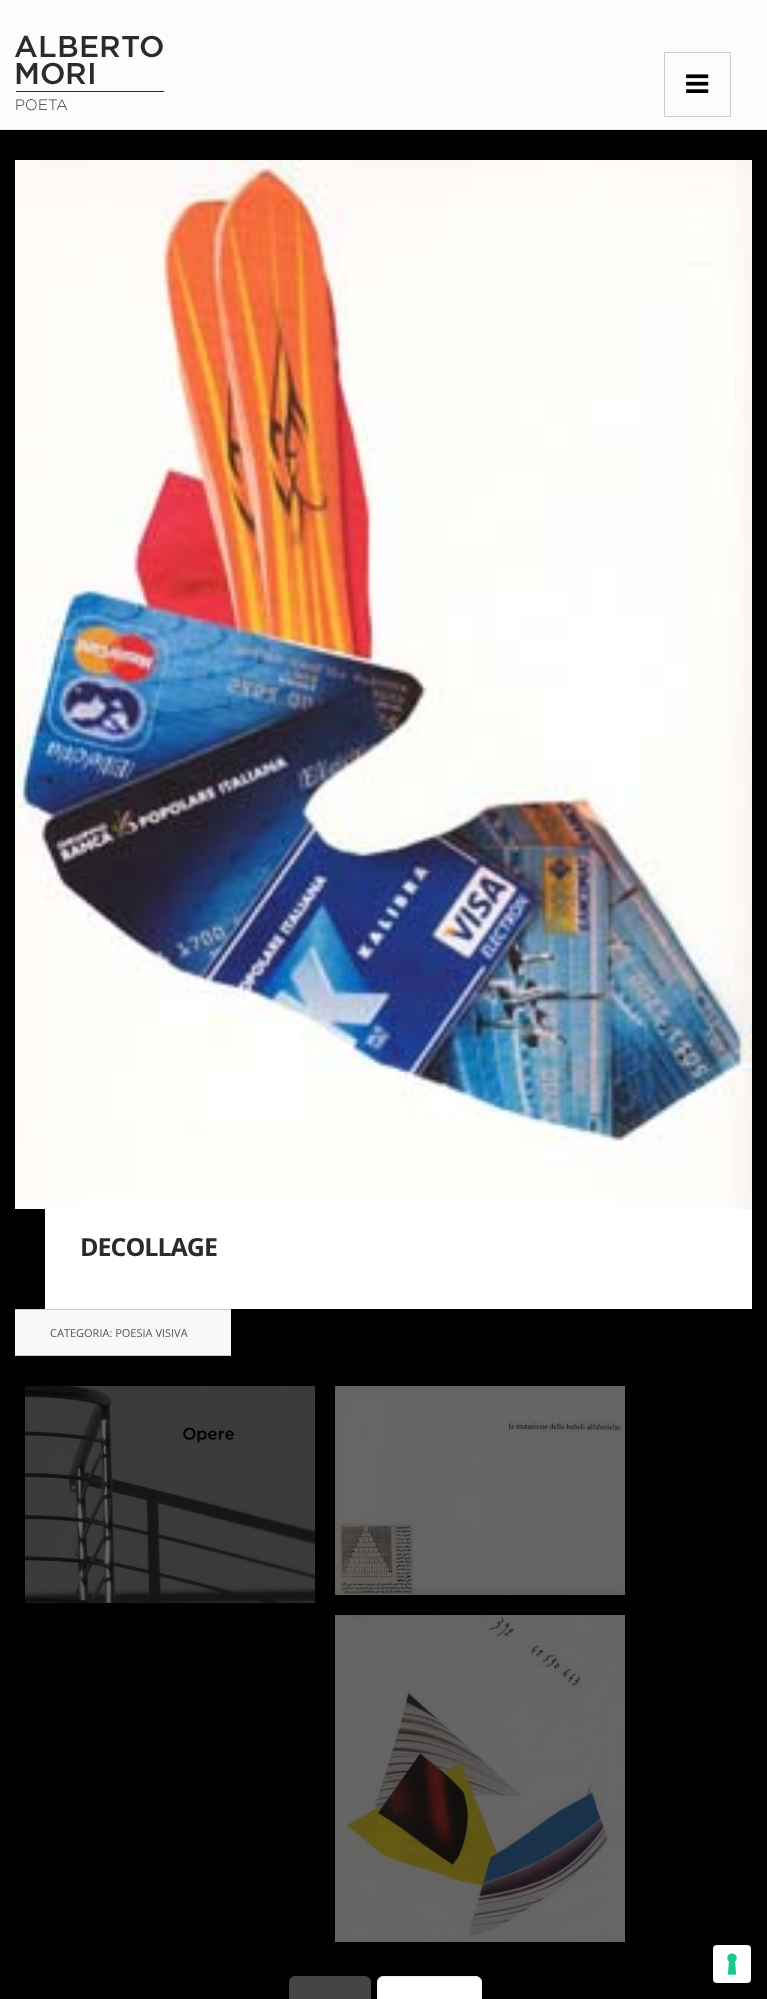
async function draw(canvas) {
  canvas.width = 767;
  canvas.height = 1999;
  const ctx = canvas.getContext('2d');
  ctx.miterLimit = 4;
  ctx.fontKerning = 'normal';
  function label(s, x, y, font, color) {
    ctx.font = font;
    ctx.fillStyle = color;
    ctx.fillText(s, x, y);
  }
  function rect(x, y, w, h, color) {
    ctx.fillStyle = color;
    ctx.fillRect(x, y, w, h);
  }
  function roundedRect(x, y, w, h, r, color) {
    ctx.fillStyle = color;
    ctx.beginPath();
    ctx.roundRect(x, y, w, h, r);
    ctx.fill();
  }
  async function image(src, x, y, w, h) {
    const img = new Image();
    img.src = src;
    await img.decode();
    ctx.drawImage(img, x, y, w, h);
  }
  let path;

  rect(0, 0, 767, 1999, '#000');
  rect(0, 0, 767, 129, '#fcfcfc');
  rect(0, 129, 767, 1, '#eaeaea');
  await image('assets/img1.png', 15, 35, 149, 76);
  ctx.strokeStyle = '#ccc';
  ctx.strokeRect(664.5, 52.5, 66, 64);
  await image('assets/img2.png', 686, 74, 23, 19);
  await image('assets/img3.png', 15, 160, 737, 1049);
  rect(45, 1209, 707, 100, '#fff');
  path = new Path2D('M104 1209H80L92 1197Z');
  ctx.fill(path);
  ctx.letterSpacing = '-1px';
  label('DECOLLAGE', 80, 1256, 'bold 25px Open Sans', '#2b2b2b');
  rect(15, 1310, 216, 45, '#f8f8f8');
  rect(15, 1309, 216, 1, '#ccc');
  rect(15, 1355, 216, 1, '#ccc');
  ctx.letterSpacing = '0px';
  label('CATEGORIA: POESIA VISIVA', 50, 1337, '11px Open Sans', '#555');
  await image('assets/img4.png', 25, 1386, 290, 217);
  await image('assets/img5.png', 335, 1386, 290, 209);
  await image('assets/img6.png', 335, 1615, 290, 327);
  ctx.fillStyle = '#444';
  ctx.beginPath();
  ctx.roundRect(289.5, 1976.5, 81, 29, 5.5);
  ctx.fill();
  ctx.strokeStyle = '#444';
  ctx.stroke();
  ctx.fillStyle = '#fff';
  ctx.beginPath();
  ctx.roundRect(377.5, 1976.5, 104, 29, 5.5);
  ctx.fill();
  ctx.strokeStyle = '#eee';
  ctx.stroke();
  roundedRect(713, 1945, 38, 38, 4, '#fff');
  await image('assets/img7.png', 727, 1953, 10, 22);
}

draw(document.querySelector('canvas'));
